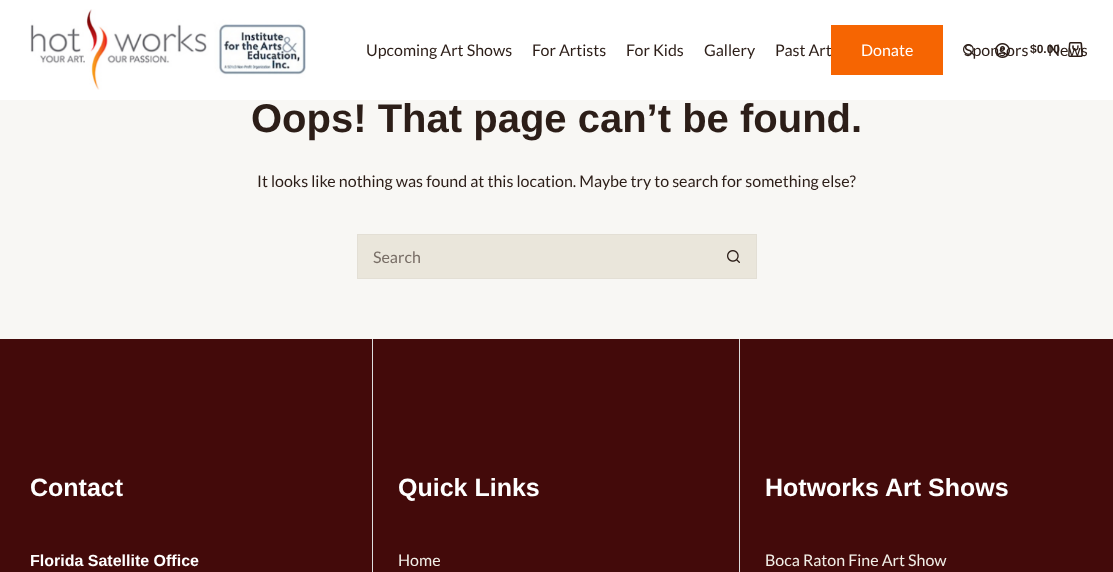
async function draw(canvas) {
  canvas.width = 1113;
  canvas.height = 572;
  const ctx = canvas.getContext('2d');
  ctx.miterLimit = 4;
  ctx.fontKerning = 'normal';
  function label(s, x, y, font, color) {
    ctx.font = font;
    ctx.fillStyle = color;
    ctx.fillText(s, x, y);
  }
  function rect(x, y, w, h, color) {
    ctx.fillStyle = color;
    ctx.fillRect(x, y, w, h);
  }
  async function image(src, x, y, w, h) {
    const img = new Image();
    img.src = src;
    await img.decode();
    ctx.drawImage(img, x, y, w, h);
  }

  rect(0, 0, 1113, 572, '#f8f7f4');
  rect(0, 0, 1113, 100, '#fff');
  await image('assets/img1.png', 30, 9, 276, 81);
  label('Upcoming Art Shows', 366, 56, '16px Lato', '#2c1e18');
  label('For Artists', 532, 56, '16px Lato', '#2c1e18');
  label('For Kids', 626, 56, '16px Lato', '#2c1e18');
  label('Gallery', 704, 56, '16px Lato', '#2c1e18');
  label('Past Art', 775, 56, '16px Lato', '#2c1e18');
  label('Sponsors', 964, 56, '16px Lato', '#2c1e18');
  label('News', 1048, 56, '16px Lato', '#2c1e18');
  rect(831, 25, 112, 50, '#f66502');
  label('Donate', 861, 56, '16px Lato', '#fff');
  await image('assets/img2.png', 963, 44, 12, 12);
  await image('assets/img3.png', 995, 43, 15, 15);
  label('$0.00', 1030, 53, 'bold 12px Liberation Sans', '#2c1e18');
  await image('assets/img4.png', 1068, 42, 15, 15);
  label('Oops! That page can’t be found.', 251, 132, 'bold 40px Liberation Sans', '#2c1e18');
  label('It looks like nothing was found at this location. Maybe try to search for something else?', 257, 187, '16px Lato', '#2c1e18');
  rect(358, 235, 398, 43, '#eae6db');
  rect(357, 234, 400, 1, '#e3dfd5');
  rect(357, 278, 355, 1, '#e3dfd5');
  rect(357, 234, 1, 45, '#e3dfd5');
  label('Search', 373, 263, '16px Lato', '#786e66');
  rect(756, 234, 1, 45, '#e3dfd5');
  rect(712, 278, 45, 1, '#e3dfd5');
  await image('assets/img5.png', 727, 250, 13, 13);
  rect(0, 339, 1113, 233, '#430a0a');
  label('Contact', 30, 496, 'bold 25px Liberation Sans', '#fff');
  rect(372, 339, 1, 233, '#ddd');
  label('Florida Satellite Office', 30, 566, 'bold 16px Liberation Sans', '#fff');
  label('Quick Links', 398, 496, 'bold 25px Liberation Sans', '#fff');
  rect(739, 339, 1, 233, '#ddd');
  label('Home', 398, 566, '16px Lato', '#f2efe7');
  label('Hotworks Art Shows', 765, 496, 'bold 25px Liberation Sans', '#fff');
  label('Boca Raton Fine Art Show', 765, 566, '16px Lato', '#f2efe7');
}

draw(document.querySelector('canvas'));
